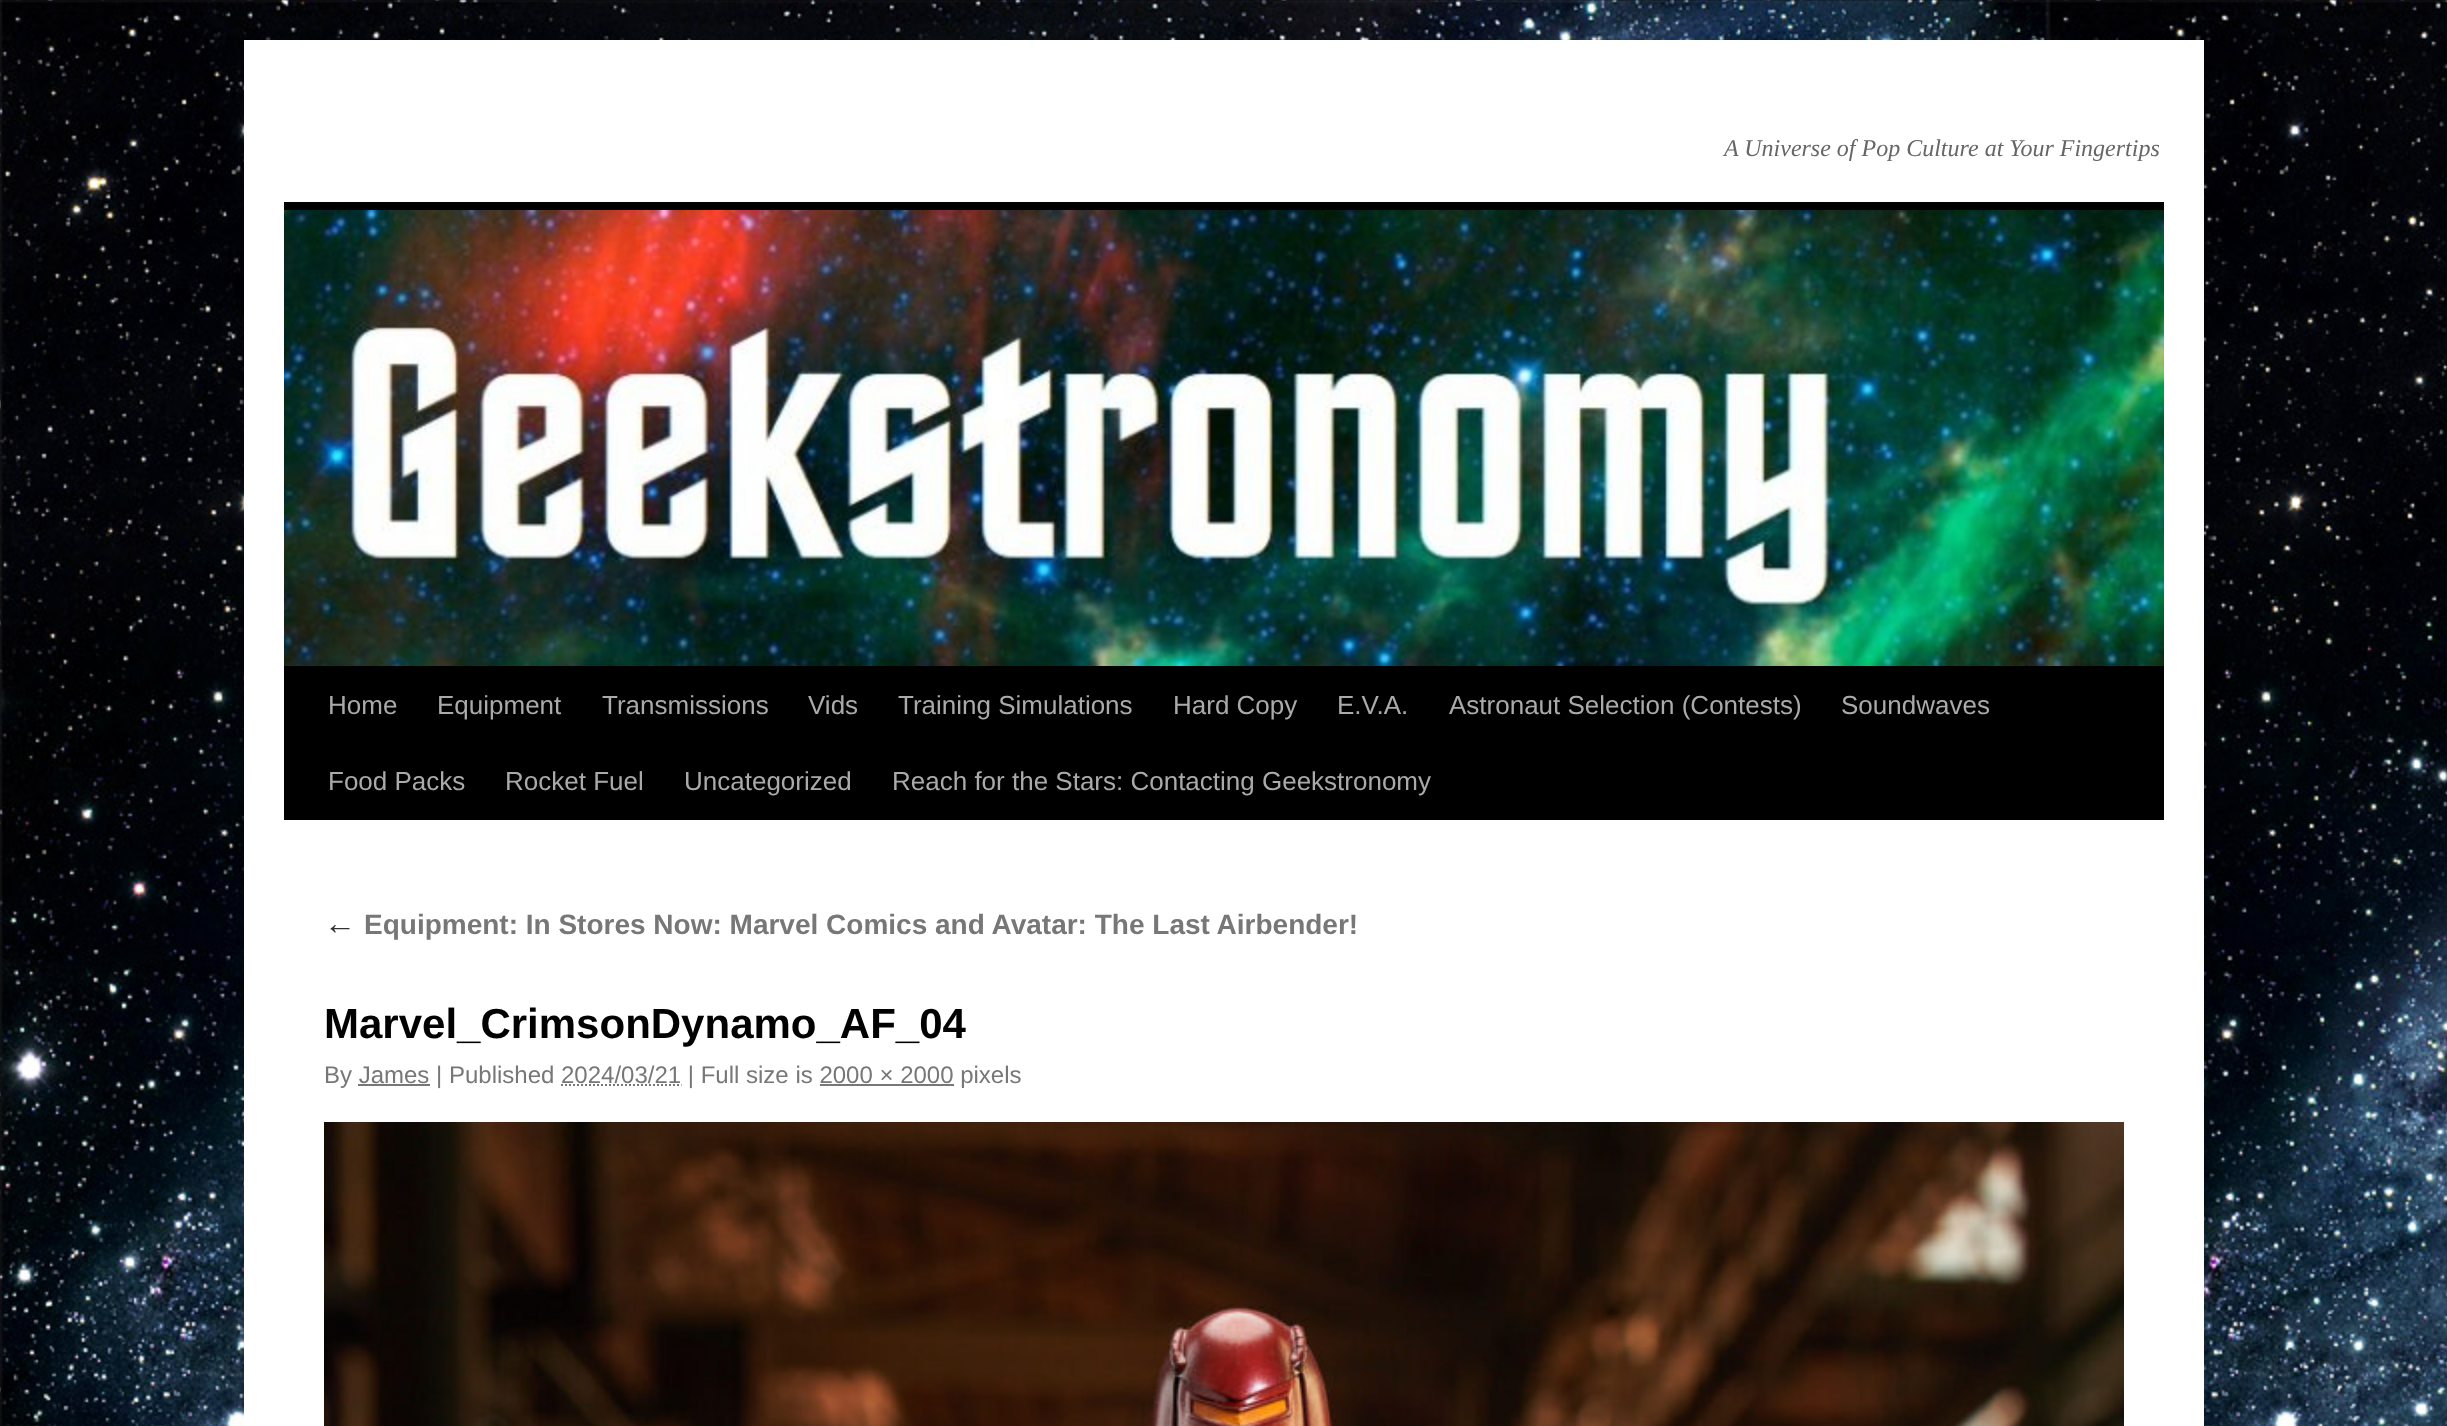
async function draw(canvas) {
  canvas.width = 2447;
  canvas.height = 1426;
  const ctx = canvas.getContext('2d');
  ctx.miterLimit = 4;
  ctx.fontKerning = 'normal';
  function label(s, x, y, font, color) {
    ctx.font = font;
    ctx.fillStyle = color;
    ctx.fillText(s, x, y);
  }
  function rect(x, y, w, h, color) {
    ctx.fillStyle = color;
    ctx.fillRect(x, y, w, h);
  }
  async function image(src, x, y, w, h) {
    const img = new Image();
    img.src = src;
    await img.decode();
    ctx.drawImage(img, x, y, w, h);
  }
  let path;

  rect(0, 0, 2447, 1426, '#fff');
  await image('assets/img1.png', 0, 0, 2447, 1426);
  rect(244, 40, 1960, 1386, '#fff');
  label('A Universe of Pop Culture at Your Fingertips', 1724, 156, 'italic 24px Liberation Serif', '#666');
  rect(284, 202, 1880, 8, '#000');
  rect(284, 666, 1880, 154, '#000');
  await image('assets/img2.png', 284, 210, 1880, 456);
  label('Home', 328, 714, '26px Liberation Sans', '#aaa');
  label('Equipment', 437, 714, '26px Liberation Sans', '#aaa');
  label('Transmissions', 602, 714, '26px Liberation Sans', '#aaa');
  label('Vids', 808, 714, '26px Liberation Sans', '#aaa');
  label('Training Simulations', 898, 714, '26px Liberation Sans', '#aaa');
  label('Hard Copy', 1173, 714, '26px Liberation Sans', '#aaa');
  label('E.V.A.', 1337, 714, '26px Liberation Sans', '#aaa');
  label('Astronaut Selection (Contests)', 1449, 714, '26px Liberation Sans', '#aaa');
  label('Soundwaves', 1841, 714, '26px Liberation Sans', '#aaa');
  label('Food Packs', 328, 790, '26px Liberation Sans', '#aaa');
  label('Rocket Fuel', 505, 790, '26px Liberation Sans', '#aaa');
  label('Uncategorized', 684, 790, '26px Liberation Sans', '#aaa');
  label('Reach for the Stars: Contacting Geekstronomy', 892, 790, '26px Liberation Sans', '#aaa');
  label('←', 324, 934, 'italic 32px Liberation Serif', '#333');
  label('Equipment: In Stores Now: Marvel Comics and Avatar: The Last Airbender!', 364, 934, 'bold 28px Liberation Sans', '#777');
  label('Marvel_CrimsonDynamo_AF_04', 324, 1038, 'bold 42px Liberation Sans', '#000');
  label('By James | Published 2024/03/21 | Full size is 2000 × 2000 pixels', 324, 1083, '24px Liberation Sans', '#777');
  rect(358, 1084, 72, 2, '#777');
  path = new Path2D('M561 1085H681.5');
  ctx.strokeStyle = '#777';
  ctx.lineWidth = 2;
  ctx.setLineDash([2, 2]);
  ctx.stroke(path);
  rect(820, 1084, 134, 2, '#777');
  await image('assets/img3.png', 324, 1122, 1800, 304);
}

draw(document.querySelector('canvas'));
